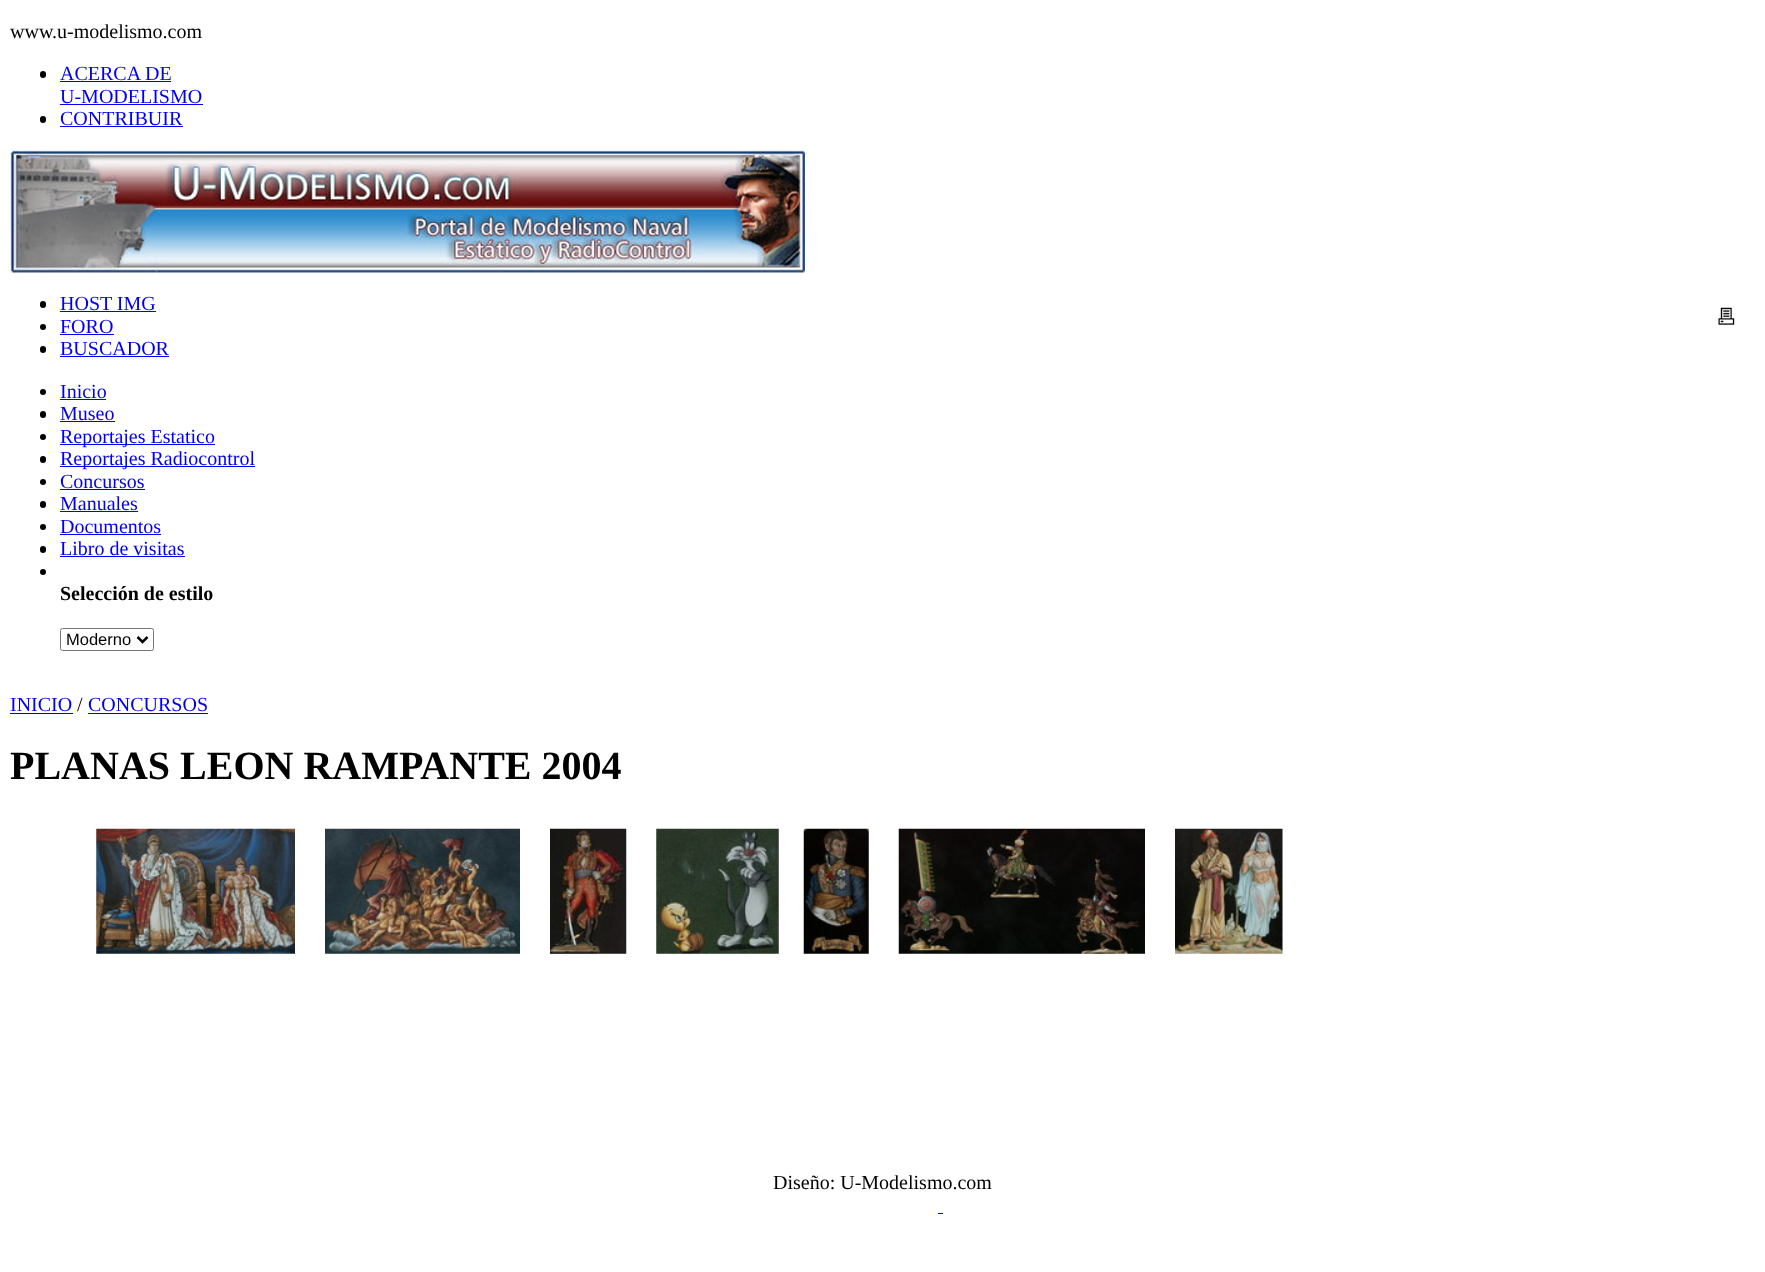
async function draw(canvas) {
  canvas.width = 1765;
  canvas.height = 1272;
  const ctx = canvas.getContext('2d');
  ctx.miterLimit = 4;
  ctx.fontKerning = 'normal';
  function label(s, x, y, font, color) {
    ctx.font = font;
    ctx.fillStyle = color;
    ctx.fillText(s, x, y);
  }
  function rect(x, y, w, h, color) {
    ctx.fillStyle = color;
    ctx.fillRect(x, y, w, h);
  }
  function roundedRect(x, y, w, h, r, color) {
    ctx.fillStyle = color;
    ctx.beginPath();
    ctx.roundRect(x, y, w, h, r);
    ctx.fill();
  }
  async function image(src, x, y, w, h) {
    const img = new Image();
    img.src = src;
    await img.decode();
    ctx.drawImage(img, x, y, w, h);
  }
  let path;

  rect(0, 0, 1765, 1272, '#fff');
  label('www.u-modelismo.com', 10, 38, '20px Liberation Serif', '#000');
  roundedRect(40, 71, 6, 7, 3, '#000');
  label('ACERCA DE', 60, 80, '20px Liberation Serif', '#00e');
  rect(60, 81, 111, 1, '#00e');
  label('U-MODELISMO', 60, 103, '20px Liberation Serif', '#00e');
  rect(60, 104, 143, 1, '#00e');
  roundedRect(40, 116, 6, 7, 3, '#000');
  label('CONTRIBUIR', 60, 125, '20px Liberation Serif', '#00e');
  rect(60, 126, 123, 1, '#00e');
  await image('assets/img1.png', 10, 150, 795, 123);
  roundedRect(40, 301, 6, 7, 3, '#000');
  label('HOST IMG', 60, 310, '20px Liberation Serif', '#00e');
  rect(60, 311, 96, 1, '#00e');
  await image('assets/img2.png', 1718, 307, 17, 18);
  ctx.fillStyle = '#000';
  ctx.beginPath();
  ctx.arc(43, 327, 3, 0, 2 * Math.PI);
  ctx.fill();
  label('FORO', 60, 333, '20px Liberation Serif', '#00e');
  rect(60, 334, 54, 1, '#00e');
  roundedRect(40, 346, 6, 7, 3, '#000');
  label('BUSCADOR', 60, 355, '20px Liberation Serif', '#00e');
  rect(60, 356, 109, 1, '#00e');
  ctx.fillStyle = '#000';
  ctx.beginPath();
  ctx.arc(43, 392, 3, 0, 2 * Math.PI);
  ctx.fill();
  label('Inicio', 60, 398, '20px Liberation Serif', '#00e');
  rect(60, 399, 46, 1, '#00e');
  roundedRect(40, 411, 6, 7, 3, '#000');
  label('Museo', 60, 420, '20px Liberation Serif', '#00e');
  rect(60, 421, 55, 1, '#00e');
  ctx.fillStyle = '#000';
  ctx.beginPath();
  ctx.arc(43, 437, 3, 0, 2 * Math.PI);
  ctx.fill();
  rect(60, 444, 155, 1, '#00e');
  label('Reportajes Estatico', 60, 443, '20px Liberation Serif', '#00e');
  roundedRect(40, 456, 6, 7, 3, '#000');
  rect(60, 466, 195, 1, '#00e');
  label('Reportajes Radiocontrol', 60, 465, '20px Liberation Serif', '#00e');
  ctx.fillStyle = '#000';
  ctx.beginPath();
  ctx.arc(43, 482, 3, 0, 2 * Math.PI);
  ctx.fill();
  label('Concursos', 60, 488, '20px Liberation Serif', '#00e');
  rect(60, 489, 85, 1, '#00e');
  roundedRect(40, 501, 6, 7, 3, '#000');
  label('Manuales', 60, 510, '20px Liberation Serif', '#00e');
  rect(60, 511, 78, 1, '#00e');
  ctx.fillStyle = '#000';
  ctx.beginPath();
  ctx.arc(43, 527, 3, 0, 2 * Math.PI);
  ctx.fill();
  label('Documentos', 60, 533, '20px Liberation Serif', '#00e');
  rect(60, 534, 101, 1, '#00e');
  roundedRect(40, 546, 6, 7, 3, '#000');
  label('Libro de visitas', 60, 555, '20px Liberation Serif', '#00e');
  rect(60, 556, 125, 1, '#00e');
  ctx.fillStyle = '#000';
  ctx.beginPath();
  ctx.arc(43, 572, 3, 0, 2 * Math.PI);
  ctx.fill();
  label('Selección de estilo', 60, 600, 'bold 20px Liberation Serif', '#000');
  ctx.beginPath();
  ctx.roundRect(60.5, 628.5, 93, 22, 2);
  ctx.strokeStyle = '#767676';
  ctx.stroke();
  path = new Path2D('M137.5 637L142.5 642L147.5 637');
  ctx.strokeStyle = '#000';
  ctx.lineWidth = 2.5;
  ctx.stroke(path);
  label('Moderno', 66, 645, '16.5px Liberation Sans', '#000');
  label('INICIO', 10, 711, '20px Liberation Serif', '#00e');
  rect(10, 713, 63, 1, '#00e');
  label('/', 77, 711, '20px Liberation Serif', '#000');
  label('CONCURSOS', 88, 711, '20px Liberation Serif', '#00e');
  rect(88, 713, 120, 1, '#00e');
  label('PLANAS LEON RAMPANTE 2004', 10, 779, 'bold 40px Liberation Serif', '#000');
  await image('assets/img3.png', 96, 828, 199, 126);
  await image('assets/img4.png', 325, 828, 195, 126);
  await image('assets/img5.png', 550, 828, 77, 126);
  await image('assets/img6.png', 656, 828, 123, 126);
  await image('assets/img7.png', 803, 828, 66, 126);
  await image('assets/img8.png', 898, 828, 247, 126);
  await image('assets/img9.png', 1175, 828, 108, 126);
  label('Diseño: U-Modelismo.com', 773, 1189, '20px Liberation Serif', '#000');
  rect(938, 1213, 5, 1, '#00e');
}

draw(document.querySelector('canvas'));
